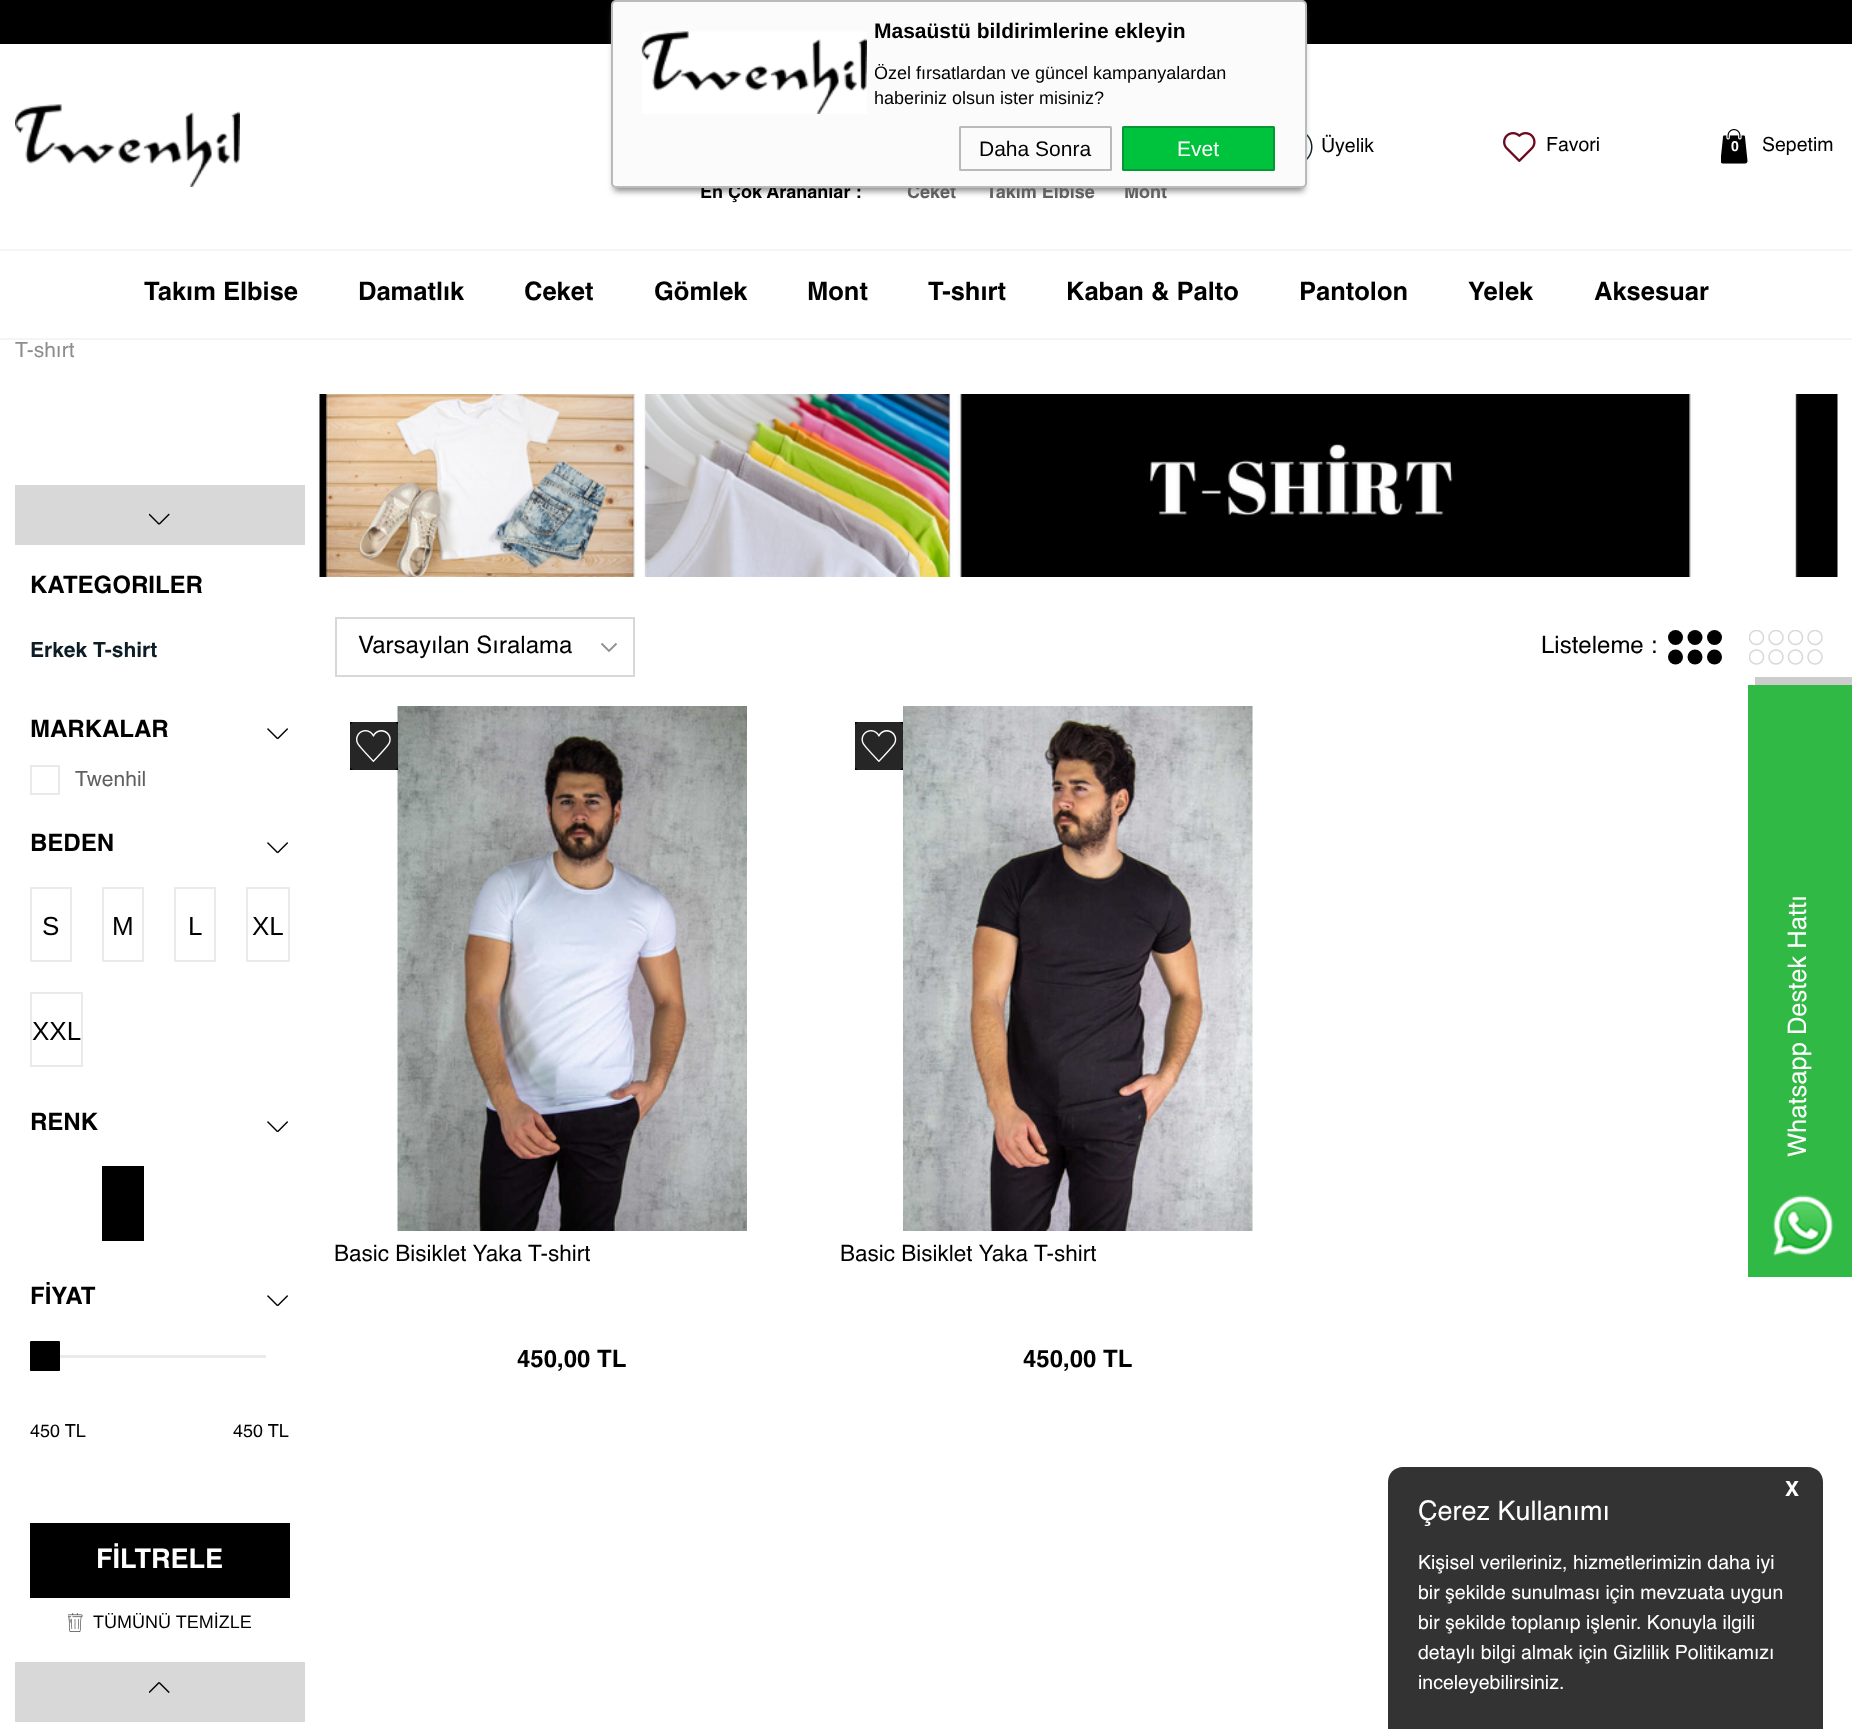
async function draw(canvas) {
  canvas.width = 1852;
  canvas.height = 1729;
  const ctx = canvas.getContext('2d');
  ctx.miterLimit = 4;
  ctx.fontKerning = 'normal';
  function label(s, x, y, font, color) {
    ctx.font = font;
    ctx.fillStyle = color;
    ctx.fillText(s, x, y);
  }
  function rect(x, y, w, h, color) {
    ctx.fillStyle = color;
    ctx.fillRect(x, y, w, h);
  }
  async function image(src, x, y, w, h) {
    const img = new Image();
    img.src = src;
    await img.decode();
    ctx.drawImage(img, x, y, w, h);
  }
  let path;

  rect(0, 0, 1852, 1729, '#fff');
  rect(0, 0, 1852, 44, '#000');
  await image('assets/img3.png', 1307, 134, 6, 26);
  ctx.fillStyle = '#888';
  ctx.filter = 'blur(3px)';
  ctx.beginPath();
  ctx.roundRect(614, 9, 690, 182, 1.5);
  ctx.fill();
  ctx.filter = 'none';
  label('En Çok Arananlar :', 700, 198, 'bold 18px Helvetica', '#000');
  label('Ceket', 907, 198, 'bold 18px Helvetica', '#606060');
  label('Takım Elbise', 986, 198, 'bold 18px Helvetica', '#606060');
  label('Mont', 1124, 198, 'bold 18px Helvetica', '#606060');
  ctx.fillStyle = '#fbfbfb';
  ctx.beginPath();
  ctx.roundRect(612, 1, 694, 186, 4);
  ctx.fill();
  ctx.strokeStyle = '#bababa';
  ctx.lineWidth = 2;
  ctx.stroke();
  await image('assets/img1.png', 641, 31, 226, 83);
  label('Masaüstü bildirimlerine ekleyin', 874, 38, 'bold 21px Liberation Sans', '#000');
  ctx.save();
  ctx.beginPath();
  ctx.rect(875, 62, 400, 49);
  ctx.clip();
  label('Özel fırsatlardan ve güncel kampanyalardan', 874, 79, '18px Liberation Sans', '#000');
  ctx.restore();
  label('haberiniz olsun ister misiniz?', 874, 104, '18px Liberation Sans', '#000');
  ctx.beginPath();
  ctx.roundRect(960, 127, 151, 43, 0.5);
  ctx.stroke();
  label('Daha Sonra', 979, 156, '21px Liberation Sans', '#000');
  ctx.fillStyle = '#00c33d';
  ctx.beginPath();
  ctx.roundRect(1123, 127, 151, 43, 0.5);
  ctx.fill();
  ctx.strokeStyle = '#059833';
  ctx.stroke();
  label('Evet', 1177, 156, '21px Liberation Sans', '#fff');
  await image('assets/img2.png', 15, 104, 225, 83);
  label('Üyelik', 1321, 152, '19.5px Helvetica', '#000');
  await image('assets/img4.png', 1503, 132, 33, 30);
  label('Favori', 1546, 151, '19.5px Helvetica', '#000');
  await image('assets/img5.png', 1721, 129, 27, 35);
  label('0', 1731, 151, 'bold 14px Helvetica', '#fff');
  label('Sepetim', 1762, 151, '19.5px Helvetica', '#000');
  rect(0, 249, 1852, 2, '#f5f5f5');
  rect(0, 338, 1852, 2, '#f5f5f5');
  label('Takım Elbise', 144, 300, 'bold 25.5px Helvetica', '#000');
  label('Damatlık', 358, 300, 'bold 25.5px Helvetica', '#000');
  label('Ceket', 524, 300, 'bold 25.5px Helvetica', '#000');
  label('Gömlek', 654, 300, 'bold 25.5px Helvetica', '#000');
  label('Mont', 807, 300, 'bold 25.5px Helvetica', '#000');
  label('T-shırt', 928, 300, 'bold 25.5px Helvetica', '#000');
  label('Kaban & Palto', 1066, 300, 'bold 25.5px Helvetica', '#000');
  label('Pantolon', 1299, 300, 'bold 25.5px Helvetica', '#000');
  label('Yelek', 1468, 300, 'bold 25.5px Helvetica', '#000');
  label('Aksesuar', 1594, 300, 'bold 25.5px Helvetica', '#000');
  label('T-shırt', 15, 357, '21px Helvetica', '#8d8d8d');
  rect(15, 485, 290, 60, '#d8d8d8');
  await image('assets/img6.png', 149, 513, 21, 12);
  ctx.save();
  ctx.beginPath();
  ctx.rect(15, 575, 290, 1087);
  ctx.clip();
  label('KATEGORİLER', 30, 593, 'bold 24px Helvetica', '#000');
  ctx.restore();
  label('Erkek T-shirt', 30, 657, 'bold 21px Helvetica', '#0e1d25');
  label('MARKALAR', 30, 737, 'bold 24px Helvetica', '#000');
  await image('assets/img7.png', 267, 728, 22, 12);
  ctx.strokeStyle = '#eaeaea';
  ctx.strokeRect(31, 766, 28, 28);
  label('Twenhil', 75, 786, '21px Helvetica', '#606060');
  label('BEDEN', 30, 851, 'bold 24px Helvetica', '#000');
  await image('assets/img7.png', 267, 842, 22, 12);
  ctx.strokeRect(31, 888, 40, 73);
  label('S', 42, 935, '26px Liberation Sans', '#000');
  ctx.strokeRect(103, 888, 40, 73);
  label('M', 112, 935, '26px Liberation Sans', '#000');
  ctx.strokeRect(175, 888, 40, 73);
  label('L', 188, 935, '26px Liberation Sans', '#000');
  ctx.strokeRect(247, 888, 42, 73);
  label('XL', 252, 935, '26px Liberation Sans', '#000');
  ctx.strokeRect(31, 993, 51, 73);
  label('XXL', 32, 1040, '26px Liberation Sans', '#000');
  label('RENK', 30, 1130, 'bold 24px Helvetica', '#000');
  await image('assets/img7.png', 267, 1121, 22, 12);
  rect(102, 1166, 42, 75, '#000');
  label('FİYAT', 30, 1304, 'bold 24px Helvetica', '#000');
  await image('assets/img7.png', 267, 1295, 22, 12);
  rect(60, 1355, 206, 3, '#eaeaea');
  ctx.beginPath();
  ctx.roundRect(31, 1342, 28, 28, 0.5);
  ctx.strokeStyle = '#000';
  ctx.stroke();
  ctx.fillStyle = '#000';
  ctx.beginPath();
  ctx.roundRect(31, 1342, 28, 28, 0.5);
  ctx.fill();
  ctx.stroke();
  label('450 TL', 30, 1437, '18px Helvetica', '#000');
  label('450 TL', 233, 1437, '18px Helvetica', '#000');
  rect(30, 1523, 260, 75, '#000');
  label('FİLTRELE', 96, 1568, 'bold 27px Helvetica', '#fff');
  await image('assets/img8.png', 68, 1613, 15, 19);
  label('TÜMÜNÜ TEMİZLE', 93, 1628, '18px Liberation Sans', '#000');
  rect(15, 1662, 290, 60, '#d8d8d8');
  await image('assets/img9.png', 149, 1682, 21, 11);
  await image('assets/img10.png', 319, 394, 1519, 183);
  path = new Path2D('M601.5 643.5L609 651L616.5 643.5');
  ctx.strokeStyle = '#919191';
  ctx.lineWidth = 1.9;
  ctx.stroke(path);
  ctx.strokeStyle = '#d8d8d8';
  ctx.lineWidth = 2;
  ctx.strokeRect(336, 618, 298, 58);
  label('Varsayılan Sıralama', 358, 653, '24px Helvetica', '#000');
  label('Listeleme :', 1541, 653, '24px Helvetica', '#000');
  ctx.beginPath();
  ctx.arc(1675.5, 637.5, 7.5, 0, 2 * Math.PI);
  ctx.fill();
  ctx.beginPath();
  ctx.arc(1675.5, 657, 7.5, 0, 2 * Math.PI);
  ctx.fill();
  ctx.beginPath();
  ctx.arc(1695, 637.5, 7.5, 0, 2 * Math.PI);
  ctx.fill();
  ctx.beginPath();
  ctx.arc(1714.5, 637.5, 7.5, 0, 2 * Math.PI);
  ctx.fill();
  ctx.beginPath();
  ctx.arc(1695, 657, 7.5, 0, 2 * Math.PI);
  ctx.fill();
  ctx.beginPath();
  ctx.arc(1714.5, 657, 7.5, 0, 2 * Math.PI);
  ctx.fill();
  await image('assets/img11.png', 1749, 630, 74, 35);
  await image('assets/img13.png', 397, 706, 350, 525);
  rect(350, 722, 48, 48, '#000');
  await image('assets/img12.png', 350, 722, 48, 48);
  label('Basic Bisiklet Yaka T-shirt', 334, 1261, '22.5px Helvetica', '#000');
  label('450,00 TL', 517, 1367, 'bold 24px Helvetica', '#000');
  rect(855, 722, 48, 48, '#000');
  await image('assets/img14.png', 855, 722, 48, 48);
  await image('assets/img15.png', 903, 706, 350, 525);
  label('Basic Bisiklet Yaka T-shirt', 840, 1261, '22.5px Helvetica', '#000');
  label('450,00 TL', 1023, 1367, 'bold 24px Helvetica', '#000');
  ctx.fillStyle = '#ccc';
  path = new Path2D('M1755 677V685H1852V1270H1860V677Z');
  ctx.fill(path);
  rect(1748, 685, 104, 592, '#30ba45');
  ctx.font = '25.5px Helvetica';
  ctx.fillStyle = '#fff';
  ctx.save();
  ctx.translate(1806, 1157);
  ctx.rotate(-90 * Math.PI / 180);
  ctx.fillText('Whatsapp Destek Hattı', 0, 0);
  ctx.restore();
  await image('assets/img16.png', 1772, 1195, 62, 61);
  ctx.fillStyle = '#333';
  path = new Path2D('M1403 1467H1808C1816.5 1467 1823 1473.5 1823 1482V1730H1388V1482C1388 1473.5 1394.5 1467 1403 1467Z');
  ctx.fill(path);
  label('X', 1785, 1496, 'bold 21px Helvetica', '#fff');
  label('Çerez Kullanımı', 1418, 1520, '27px Helvetica', '#fff');
  label('Kişisel verileriniz, hizmetlerimizin daha iyi', 1418, 1569, '19.5px Helvetica', '#fff');
  label('bir şekilde sunulması için mevzuata uygun', 1418, 1599, '19.5px Helvetica', '#fff');
  label('bir şekilde toplanıp işlenir. Konuyla ilgili', 1418, 1629, '19.5px Helvetica', '#fff');
  label('detaylı bilgi almak için Gizlilik Politikamızı', 1418, 1659, '19.5px Helvetica', '#fff');
  label('inceleyebilirsiniz.', 1418, 1689, '19.5px Helvetica', '#fff');
}

draw(document.querySelector('canvas'));
